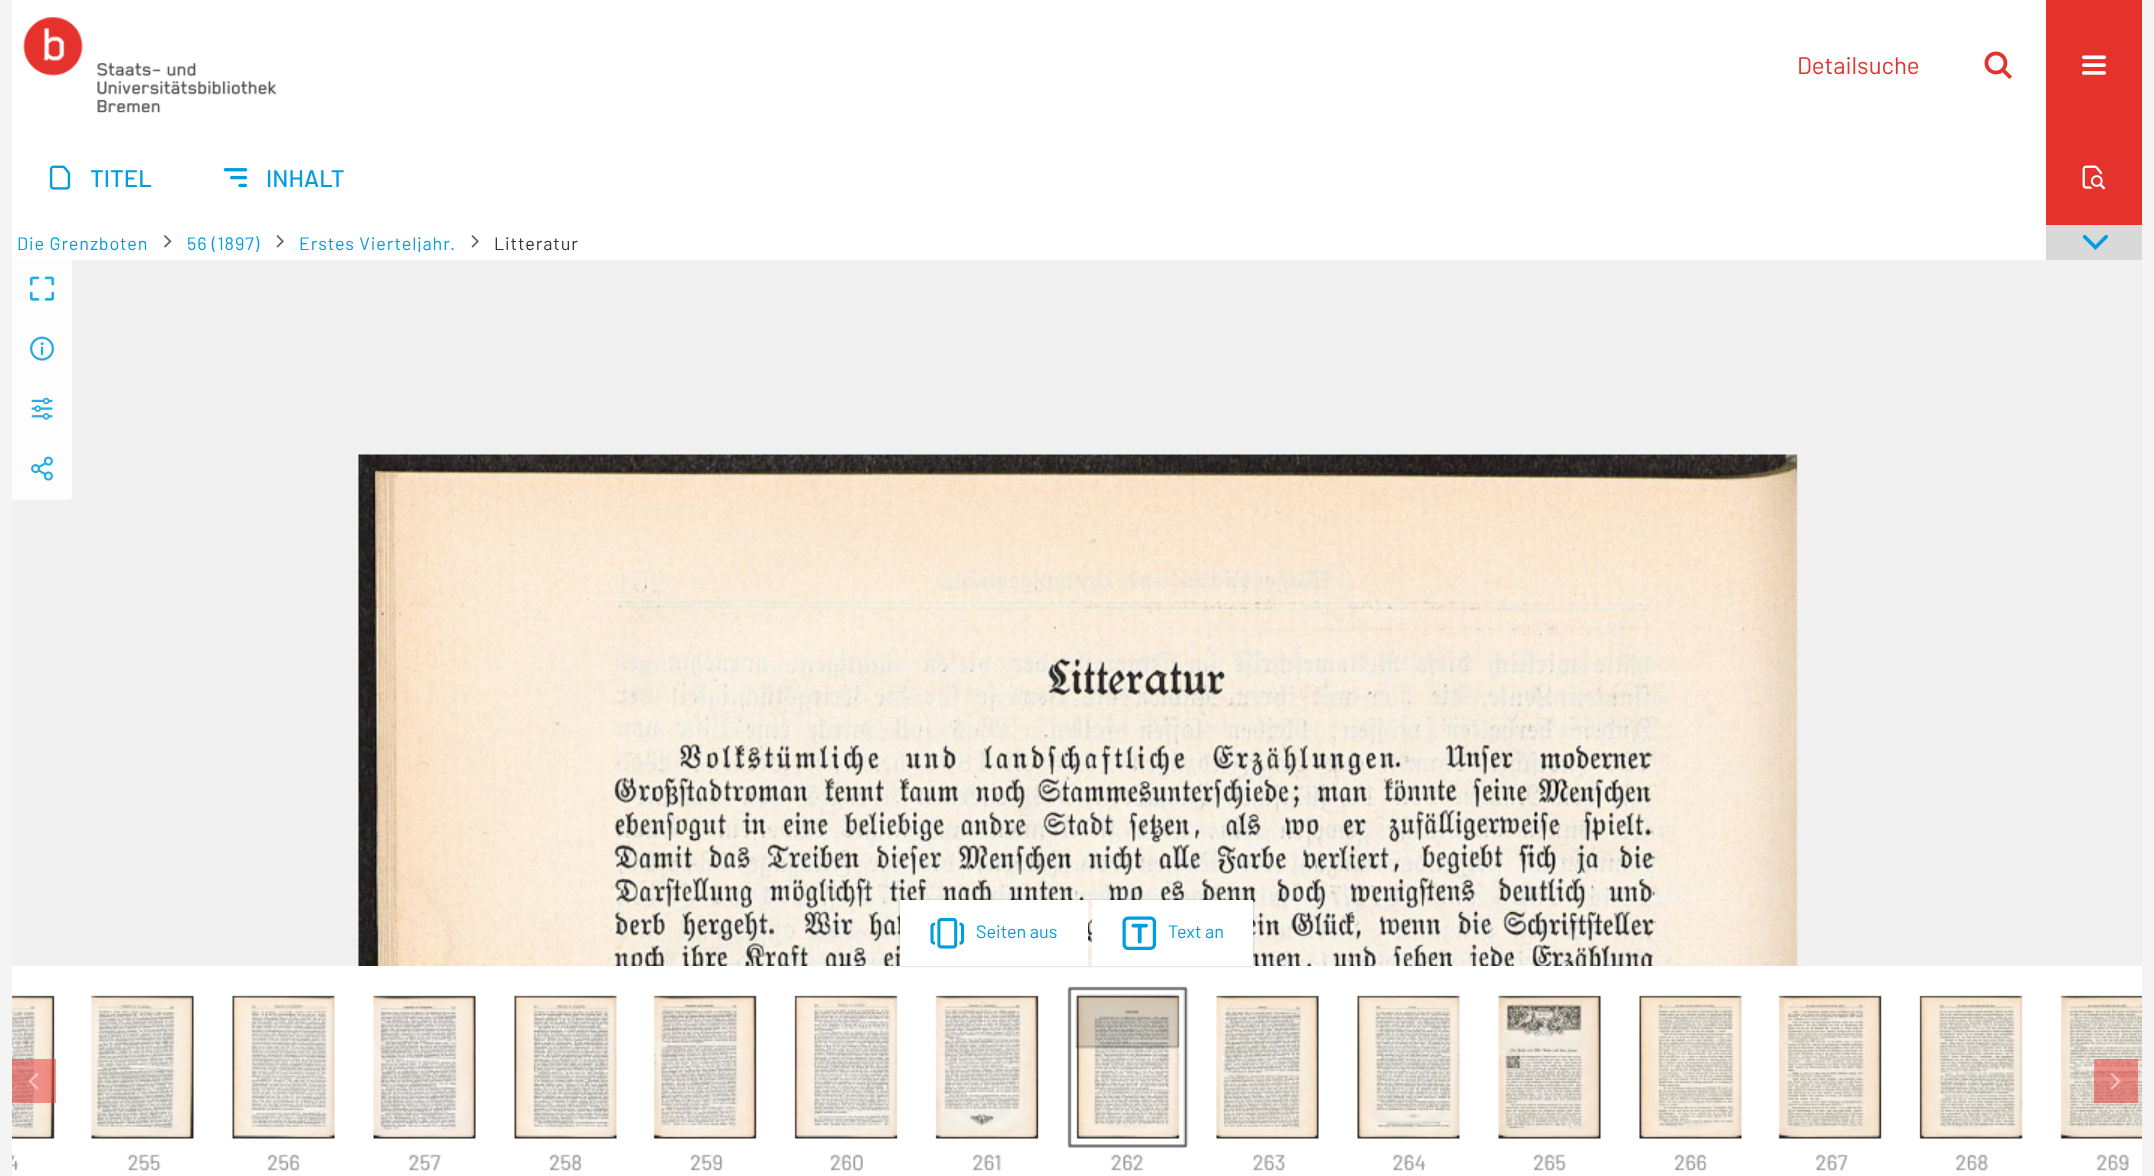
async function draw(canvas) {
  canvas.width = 2154;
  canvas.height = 1176;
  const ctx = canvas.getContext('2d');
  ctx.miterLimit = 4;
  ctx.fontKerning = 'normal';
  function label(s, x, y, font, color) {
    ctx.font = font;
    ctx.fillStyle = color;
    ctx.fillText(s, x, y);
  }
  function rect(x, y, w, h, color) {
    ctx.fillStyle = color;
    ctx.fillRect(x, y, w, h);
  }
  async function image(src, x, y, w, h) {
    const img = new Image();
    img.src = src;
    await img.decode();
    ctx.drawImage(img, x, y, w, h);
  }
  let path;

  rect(0, 0, 2154, 1176, '#f4f4f4');
  rect(12, 0, 2034, 260, '#fff');
  await image('assets/img1.png', 23, 17, 254, 96);
  label('Detailsuche', 1797, 74, '24px Barlow', '#e5322d');
  await image('assets/img2.png', 1984, 51, 28, 28);
  rect(2046, 0, 96, 225, '#e5322d');
  await image('assets/img3.png', 2082, 55, 24, 20);
  await image('assets/img4.png', 49, 165, 22, 25);
  label('TITEL', 90, 187, '500 24px Barlow', '#009de0');
  await image('assets/img5.png', 223, 168, 25, 20);
  label('INHALT', 266, 187, '500 24px Barlow', '#009de0');
  await image('assets/img6.png', 2082, 165, 24, 25);
  ctx.letterSpacing = '0.9px';
  label('Die Grenzboten', 17, 250, '18px Barlow', '#009de0');
  await image('assets/img7.png', 164, 235, 8, 13);
  label('56 (1897)', 187, 250, '18px Barlow', '#009de0');
  await image('assets/img8.png', 276, 235, 8, 13);
  ctx.save();
  ctx.beginPath();
  ctx.rect(299, 231, 157, 21);
  ctx.clip();
  label('Erstes Vierteljahr.', 299, 250, '18px Barlow', '#009de0');
  ctx.restore();
  await image('assets/img8.png', 471, 235, 8, 13);
  label('Litteratur', 494, 250, '18px Barlow', '#333');
  rect(2046, 225, 96, 35, '#d9d9d9');
  await image('assets/img9.png', 2082, 234, 27, 16);
  rect(12, 260, 2130, 706, '#f0f0f0');
  rect(12, 260, 60, 180, '#fdfdfd');
  await image('assets/img10.png', 30, 276, 25, 25);
  await image('assets/img11.png', 30, 336, 24, 25);
  await image('assets/img12.png', 31, 397, 22, 23);
  ctx.beginPath();
  ctx.roundRect(12, 440, 60, 60, [0, 0, 3, 0]);
  ctx.fill();
  await image('assets/img13.png', 31, 456, 22, 25);
  await image('assets/img14.png', 358, 454, 1440, 512);
  rect(12, 966, 2130, 210, '#fff');
  ctx.save();
  path = new Path2D('M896 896H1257V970H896ZM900 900H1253V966H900Z');
  ctx.clip(path, 'evenodd');
  ctx.fillStyle = '#00000045';
  ctx.filter = 'blur(1px)';
  ctx.beginPath();
  ctx.rect(900, 900, 353, 66);
  ctx.fill();
  ctx.filter = 'none';
  ctx.restore();
  rect(900, 900, 188, 66, '#fff');
  await image('assets/img15.png', 930, 917, 35, 32);
  ctx.letterSpacing = '0px';
  label('Seiten aus', 976, 938, '18px Barlow', '#009de0');
  rect(1092, 900, 161, 66, '#fff');
  await image('assets/img16.png', 1122, 916, 35, 35);
  label('Text an', 1168, 938, '18px Barlow', '#009de0');
  await image('assets/img17.png', 12, 986, 2130, 186);
  rect(12, 1059, 44, 44, '#e5322d80');
  await image('assets/img18.png', 28, 1073, 11, 17);
  rect(2094, 1059, 44, 44, '#e5322d80');
  await image('assets/img19.png', 2110, 1073, 11, 17);
}

draw(document.querySelector('canvas'));
